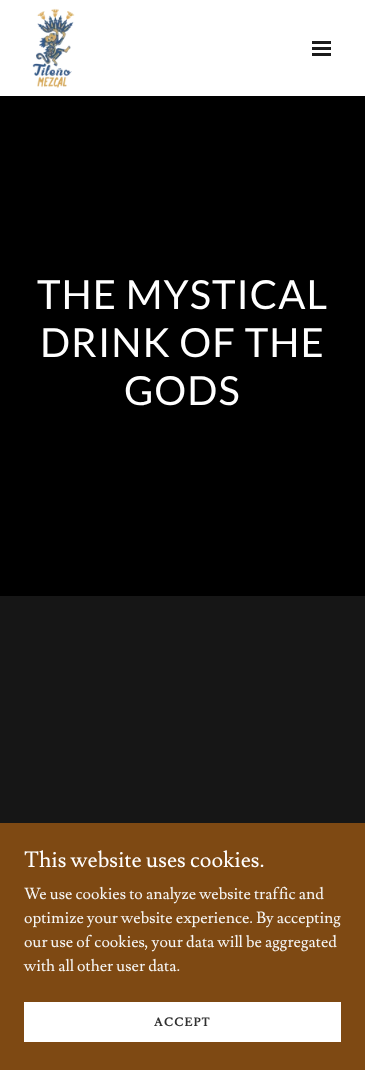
async function draw(canvas) {
  canvas.width = 365;
  canvas.height = 1070;
  const ctx = canvas.getContext('2d');
  ctx.miterLimit = 4;
  ctx.fontKerning = 'normal';
  function label(s, x, y, font, color) {
    ctx.font = font;
    ctx.fillStyle = color;
    ctx.fillText(s, x, y);
  }
  function rect(x, y, w, h, color) {
    ctx.fillStyle = color;
    ctx.fillRect(x, y, w, h);
  }
  async function image(src, x, y, w, h) {
    const img = new Image();
    img.src = src;
    await img.decode();
    ctx.drawImage(img, x, y, w, h);
  }

  rect(0, 0, 365, 1070, '#161616');
  rect(0, 0, 365, 96, '#fff');
  await image('assets/img1.png', 32, 8, 43, 80);
  rect(312, 41, 19, 3, '#1b1b1b');
  rect(312, 47, 19, 3, '#1b1b1b');
  rect(312, 53, 19, 3, '#1b1b1b');
  rect(0, 96, 365, 500, '#000');
  ctx.letterSpacing = '1px';
  label('THE MYSTICAL', 37, 309, '40px Lato', '#fff');
  label('DRINK OF THE', 40, 357, '40px Lato', '#fff');
  label('GODS', 124, 405, '40px Lato', '#fff');
  rect(0, 823, 365, 247, '#7e4913');
  ctx.letterSpacing = '0px';
  label('This website uses cookies.', 24, 867, '22px Lusitana', '#fff');
  label('We use cookies to analyze website traffic and', 24, 899, '16px Lusitana', '#f5f5f4');
  label('optimize your website experience. By accepting', 24, 923, '16px Lusitana', '#f5f5f4');
  label('our use of cookies, your data will be aggregated', 24, 947, '16px Lusitana', '#f5f5f4');
  label('with all other user data.', 24, 971, '16px Lusitana', '#f5f5f4');
  rect(24, 1002, 317, 40, '#fff');
  ctx.letterSpacing = '1px';
  label('ACCEPT', 154, 1026, 'bold 12px Lusitana', '#303030');
}

draw(document.querySelector('canvas'));
